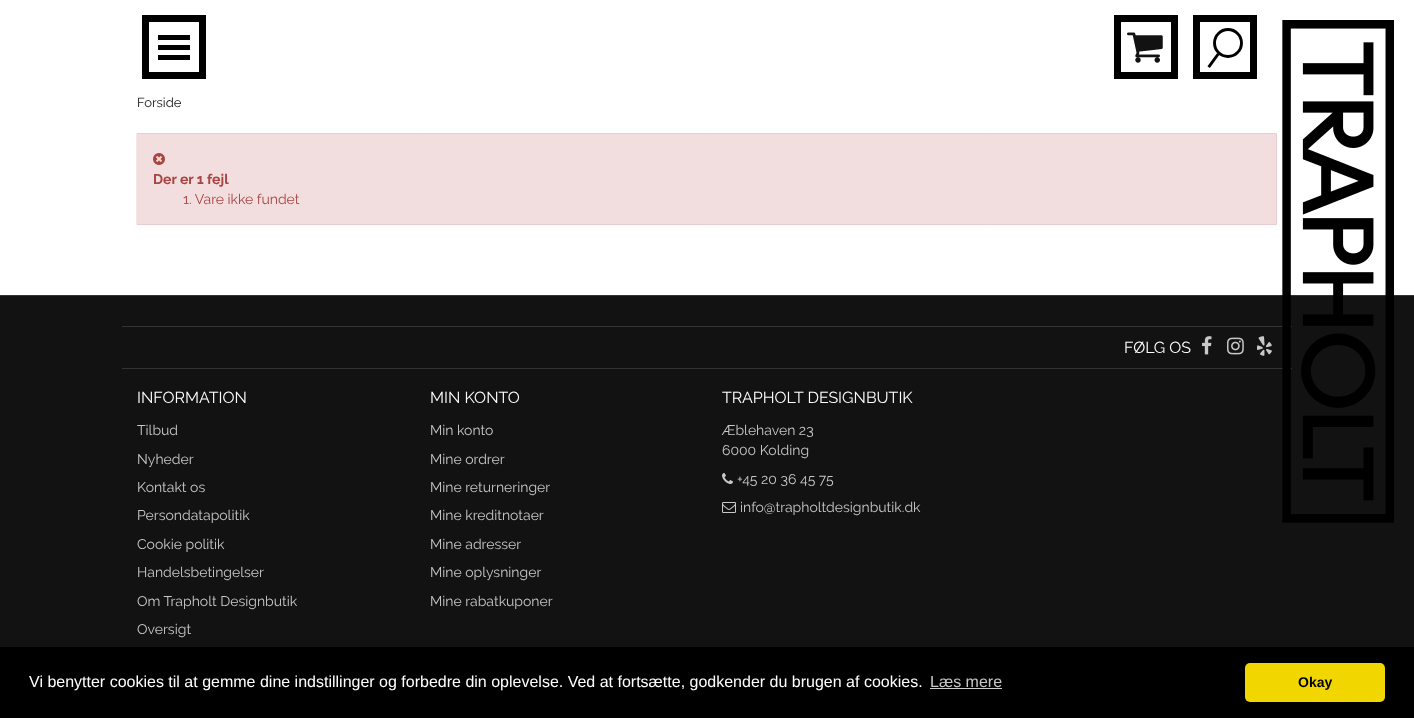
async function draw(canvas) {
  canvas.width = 1414;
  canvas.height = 718;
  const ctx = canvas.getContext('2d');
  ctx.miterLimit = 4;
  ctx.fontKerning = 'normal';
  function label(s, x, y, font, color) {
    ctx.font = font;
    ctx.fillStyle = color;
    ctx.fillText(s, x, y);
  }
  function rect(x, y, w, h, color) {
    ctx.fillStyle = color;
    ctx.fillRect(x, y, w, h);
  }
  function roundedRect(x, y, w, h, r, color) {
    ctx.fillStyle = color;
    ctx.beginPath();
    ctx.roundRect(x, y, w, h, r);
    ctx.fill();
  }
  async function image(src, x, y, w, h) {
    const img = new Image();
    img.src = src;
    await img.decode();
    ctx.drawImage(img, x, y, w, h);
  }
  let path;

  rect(0, 0, 1414, 718, '#fff');
  ctx.strokeStyle = '#000';
  ctx.lineWidth = 7;
  ctx.strokeRect(145.5, 18.5, 57, 57);
  rect(158, 35, 32, 5, '#000');
  rect(158, 45, 32, 5, '#000');
  rect(158, 55, 32, 5, '#000');
  ctx.strokeRect(1117.5, 18.5, 57, 57);
  await image('assets/img1.png', 1127, 32, 36, 31);
  ctx.strokeRect(1196.5, 18.5, 57, 57);
  ctx.beginPath();
  ctx.arc(1228, 43, 13.5, 0, 2 * Math.PI);
  ctx.lineWidth = 2.9;
  ctx.stroke();
  path = new Path2D('M1217.5 55L1209.5 66');
  ctx.lineCap = 'square';
  ctx.stroke(path);
  rect(0, 296, 1414, 351, '#121212');
  rect(0, 295, 1414, 1, '#333');
  rect(122, 326, 1170, 1, '#333');
  rect(122, 368, 1170, 1, '#333');
  await image('assets/img2.png', 1282, 20, 112, 503);
  label('Forside', 137, 107, '13px Raleway', '#121212');
  ctx.fillStyle = '#f2dede';
  ctx.beginPath();
  ctx.rect(137.5, 133.5, 1139, 91);
  ctx.fill();
  ctx.strokeStyle = '#ebccd1';
  ctx.lineWidth = 1;
  ctx.stroke();
  await image('assets/img3.png', 153, 153, 12, 12);
  label('Der er 1 fejl', 153, 184, 'bold 14px Raleway', '#a94442');
  label('1. Vare ikke fundet', 183, 204, '14px Raleway', '#a94442');
  label('FØLG OS', 1124, 353, '16px Raleway', '#fff');
  await image('assets/img4.png', 1202, 336, 10, 19);
  await image('assets/img5.png', 1227, 337, 17, 18);
  await image('assets/img6.png', 1256, 336, 16, 20);
  label('INFORMATION', 137, 403, '16px Raleway', '#fff');
  label('Tilbud', 137, 435, '14px Raleway', '#c8c8c8');
  label('Nyheder', 137, 464, '14px Raleway', '#c8c8c8');
  label('Kontakt os', 137, 492, '14px Raleway', '#c8c8c8');
  label('Persondatapolitik', 137, 520, '14px Raleway', '#c8c8c8');
  label('Cookie politik', 137, 549, '14px Raleway', '#c8c8c8');
  label('Handelsbetingelser', 137, 577, '14px Raleway', '#c8c8c8');
  label('Om Trapholt Designbutik', 137, 606, '14px Raleway', '#c8c8c8');
  label('Oversigt', 137, 634, '14px Raleway', '#c8c8c8');
  label('MIN KONTO', 430, 403, '16px Raleway', '#fff');
  label('Min konto', 430, 435, '14px Raleway', '#c8c8c8');
  label('Mine ordrer', 430, 464, '14px Raleway', '#c8c8c8');
  label('Mine returneringer', 430, 492, '14px Raleway', '#c8c8c8');
  label('Mine kreditnotaer', 430, 520, '14px Raleway', '#c8c8c8');
  label('Mine adresser', 430, 549, '14px Raleway', '#c8c8c8');
  label('Mine oplysninger', 430, 577, '14px Raleway', '#c8c8c8');
  label('Mine rabatkuponer', 430, 606, '14px Raleway', '#c8c8c8');
  label('TRAPHOLT DESIGNBUTIK', 722, 403, '16px Raleway', '#fff');
  label('Æblehaven 23', 722, 435, '14px Raleway', '#c8c8c8');
  label('6000 Kolding', 722, 455, '14px Raleway', '#c8c8c8');
  await image('assets/img7.png', 722, 473, 11, 11);
  label('+45 20 36 45 75', 737, 484, '14px Raleway', '#c8c8c8');
  await image('assets/img8.png', 722, 502, 14, 11);
  label('info@trapholtdesignbutik.dk', 740, 512, '14px Raleway', '#c8c8c8');
  rect(0, 647, 1414, 71, '#000');
  label('Vi benytter cookies til at gemme dine indstillinger og forbedre din oplevelse. Ved at fortsætte, godkender du brugen af cookies.', 29, 687, '16px Liberation Sans', '#fff');
  label('Læs mere', 930, 687, '16px Liberation Sans', '#c8c8c8');
  rect(930, 688, 72, 1, '#ccc');
  roundedRect(1245, 663, 140, 39, 5, '#f1d600');
  label('Okay', 1298, 687, 'bold 14px Liberation Sans', '#000');
}

draw(document.querySelector('canvas'));
